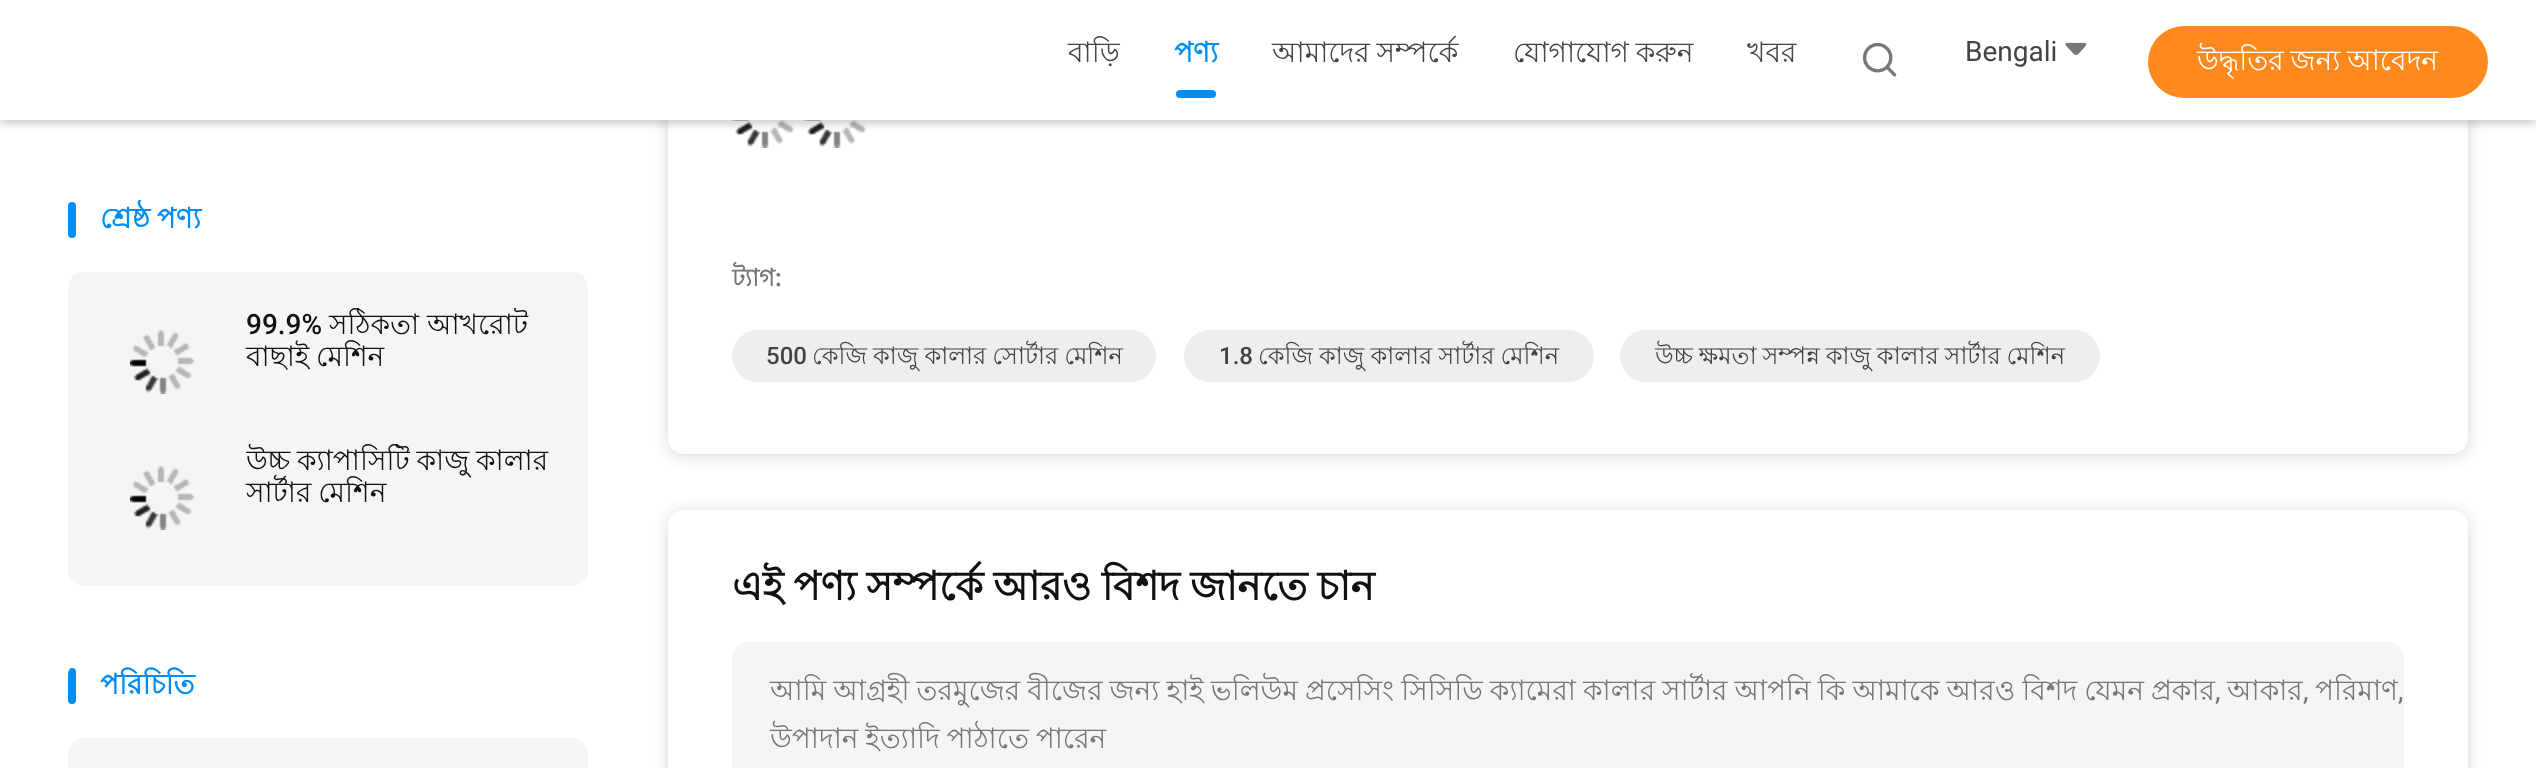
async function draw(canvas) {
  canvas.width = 2536;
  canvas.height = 768;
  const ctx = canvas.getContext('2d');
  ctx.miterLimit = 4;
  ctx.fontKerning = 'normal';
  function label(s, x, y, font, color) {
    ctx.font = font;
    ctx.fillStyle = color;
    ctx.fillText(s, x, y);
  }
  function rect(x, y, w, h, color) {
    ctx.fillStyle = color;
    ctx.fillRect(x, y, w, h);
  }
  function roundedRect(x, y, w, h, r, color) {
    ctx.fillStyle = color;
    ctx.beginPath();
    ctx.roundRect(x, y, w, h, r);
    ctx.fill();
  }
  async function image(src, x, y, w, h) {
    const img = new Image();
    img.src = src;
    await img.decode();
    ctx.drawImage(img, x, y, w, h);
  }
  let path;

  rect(0, 0, 2536, 768, '#fff');
  ctx.save();
  path = new Path2D('M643 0H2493V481H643ZM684-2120H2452C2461-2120 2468-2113 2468-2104V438C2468 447 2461 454 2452 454H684C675 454 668 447 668 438V-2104C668-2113 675-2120 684-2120Z');
  ctx.clip(path, 'evenodd');
  ctx.fillStyle = '#00000029';
  ctx.filter = 'blur(8px)';
  ctx.beginPath();
  ctx.roundRect(668, -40, 1800, 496, 16);
  ctx.fill();
  ctx.filter = 'none';
  ctx.restore();
  await image('assets/img4.png', 732, 120, 63, 28);
  await image('assets/img4.png', 804, 120, 63, 28);
  ctx.fillStyle = '#00000033';
  ctx.filter = 'blur(4px)';
  ctx.beginPath();
  ctx.rect(0, 4, 2536, 120);
  ctx.fill();
  ctx.filter = 'none';
  rect(0, 0, 2536, 120, '#fff');
  label('বাড়ি', 1068, 62, '28px Lohit Bengali', '#444');
  label('পণ্য', 1174, 62, 'bold 28px Lohit Bengali', '#008ef6');
  roundedRect(1176, 90, 40, 8, 4, '#008ef6');
  ctx.wordSpacing = '-1px';
  label('আমাদের সম্পর্কে', 1272, 62, '28px Lohit Bengali', '#444');
  label('যোগাযোগ করুন', 1513, 62, '28px Lohit Bengali', '#444');
  ctx.wordSpacing = '0px';
  label('খবর', 1747, 62, '28px Lohit Bengali', '#444');
  await image('assets/img1.png', 1862, 42, 35, 35);
  label('Bengali', 1965, 61, '28px Roboto', '#444');
  await image('assets/img2.png', 2065, 42, 22, 13);
  roundedRect(2148, 26, 340, 72, 36, '#ff891c');
  ctx.wordSpacing = '-1px';
  label('উদ্ধৃতির জন্য আবেদন', 2197, 70, '28px Lohit Bengali', '#fff');
  roundedRect(68, 202, 8, 36, 4, '#008ef6');
  label('শ্রেষ্ঠ পণ্য', 100, 228, 'bold 28px Lohit Bengali', '#008ef6');
  roundedRect(68, 272, 520, 314, 16, '#f5f5f5');
  await image('assets/img3.png', 130, 330, 64, 64);
  ctx.wordSpacing = '0px';
  label('99.9%', 246, 334, '500 28px Roboto', '#111');
  ctx.save();
  ctx.beginPath();
  ctx.rect(246, 308, 310, 64);
  ctx.clip();
  label('সঠিকতা আখরোট', 329, 334, '28px Lohit Bengali', '#111');
  ctx.restore();
  ctx.wordSpacing = '-1px';
  label('বাছাই মেশিন', 246, 366, '28px Lohit Bengali', '#111');
  await image('assets/img3.png', 130, 466, 64, 64);
  ctx.save();
  ctx.beginPath();
  ctx.rect(246, 444, 310, 64);
  ctx.clip();
  label('উচ্চ ক্যাপাসিটি কাজু কালার', 246, 470, '28px Lohit Bengali', '#111');
  ctx.restore();
  label('সার্টার মেশিন', 246, 502, '28px Lohit Bengali', '#111');
  ctx.save();
  ctx.beginPath();
  ctx.roundRect(68, 666, 520, 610, 8);
  ctx.clip();
  roundedRect(68, 668, 8, 36, 4, '#008ef6');
  ctx.restore();
  ctx.wordSpacing = '0px';
  label('পরিচিতি', 100, 694, 'bold 28px Lohit Bengali', '#008ef6');
  roundedRect(68, 738, 520, 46, 16, '#f5f5f5');
  label('ট্যাগ', 732, 286, 'bold 24px Lohit Bengali', '#777');
  label(':', 775, 286, 'bold 24px Roboto', '#777');
  roundedRect(732, 330, 424, 52, 26, '#eee');
  label('500', 766, 364, '500 24px Roboto', '#444');
  ctx.wordSpacing = '-0.5px';
  label('কেজি কাজু কালার সোর্টার মেশিন', 812, 364, '24px Lohit Bengali', '#444');
  roundedRect(1184, 330, 410, 52, 26, '#eee');
  ctx.wordSpacing = '0px';
  label('1.8', 1219, 364, '500 24px Roboto', '#444');
  ctx.wordSpacing = '-0.5px';
  label('কেজি কাজু কালার সার্টার মেশিন', 1258, 364, '24px Lohit Bengali', '#444');
  roundedRect(1620, 330, 480, 52, 26, '#eee');
  ctx.wordSpacing = '-0.75px';
  label('উচ্চ ক্ষমতা সম্পন্ন কাজু কালার সার্টার মেশিন', 1655, 364, '24px Lohit Bengali', '#444');
  ctx.save();
  path = new Path2D('M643 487H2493V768H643ZM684 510H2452C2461 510 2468 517 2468 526V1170C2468 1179 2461 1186 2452 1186H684C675 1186 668 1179 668 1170V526C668 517 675 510 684 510Z');
  ctx.clip(path, 'evenodd');
  ctx.fillStyle = '#00000029';
  ctx.filter = 'blur(8px)';
  ctx.beginPath();
  ctx.roundRect(668, 512, 1800, 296, 16);
  ctx.fill();
  ctx.filter = 'none';
  ctx.restore();
  ctx.wordSpacing = '-1px';
  label('এই পণ্য সম্পর্কে আরও বিশদ জানতে চান', 732, 600, 'bold 40px Lohit Bengali', '#111');
  roundedRect(732, 642, 1672, 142, 16, '#f5f5f5');
  ctx.wordSpacing = '-0.75px';
  label('আমি আগ্রহী তরমুজের বীজের জন্য হাই ভলিউম প্রসেসিং সিসিডি ক্যামেরা কালার সার্টার আপনি কি আমাকে আরও বিশদ যেমন প্রকার', 770, 700, '28px Lohit Bengali', '#777');
  ctx.wordSpacing = '0px';
  label(',', 2215, 700, '28px Roboto', '#777');
  label('আকার', 2227, 700, '28px Lohit Bengali', '#777');
  label(',', 2303, 700, '28px Roboto', '#777');
  label('পরিমাণ', 2315, 700, '28px Lohit Bengali', '#777');
  label(',', 2398, 700, '28px Roboto', '#777');
  ctx.wordSpacing = '-1px';
  label('উপাদান ইত্যাদি পাঠাতে পারেন', 770, 748, '28px Lohit Bengali', '#777');
}

draw(document.querySelector('canvas'));
